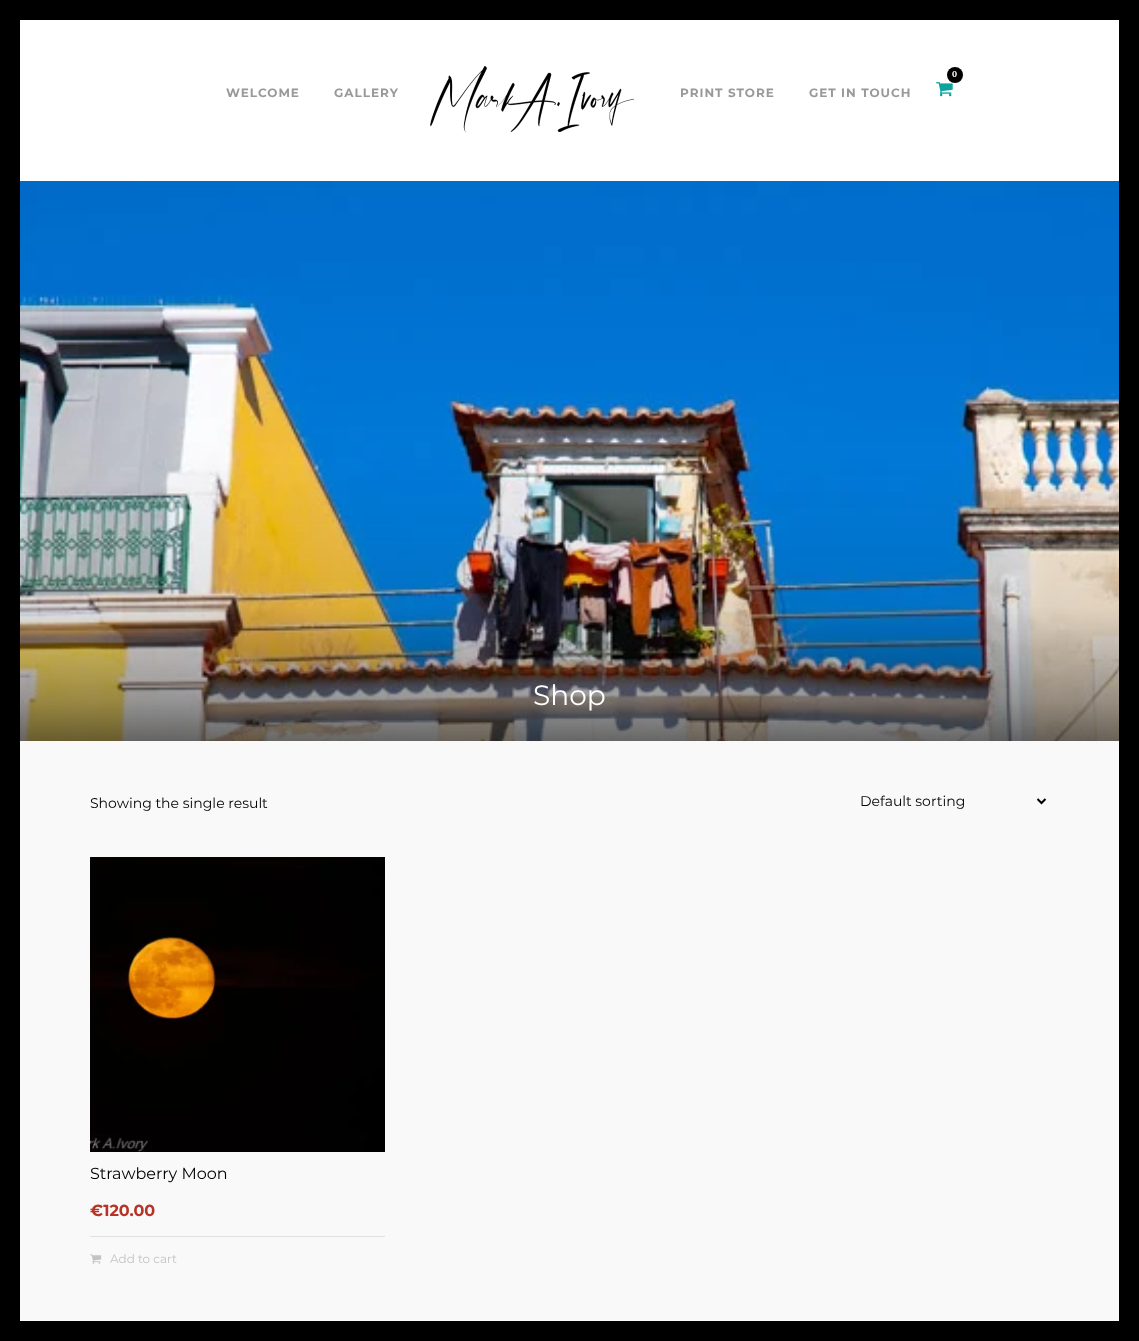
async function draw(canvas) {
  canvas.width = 1139;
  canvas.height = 1341;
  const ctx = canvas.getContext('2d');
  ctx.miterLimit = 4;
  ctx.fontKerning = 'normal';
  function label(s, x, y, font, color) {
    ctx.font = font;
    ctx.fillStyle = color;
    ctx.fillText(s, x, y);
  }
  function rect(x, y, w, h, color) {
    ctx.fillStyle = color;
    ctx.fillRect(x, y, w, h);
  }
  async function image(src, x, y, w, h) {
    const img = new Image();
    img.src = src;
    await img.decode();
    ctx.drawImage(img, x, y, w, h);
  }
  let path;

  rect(0, 0, 1139, 1341, '#fff');
  rect(0, 0, 1139, 20, '#000');
  rect(0, 20, 20, 1321, '#000');
  await image('assets/img1.png', 430, 66, 204, 66);
  await image('assets/img2.png', 936, 82, 17, 15);
  ctx.beginPath();
  ctx.arc(955, 75, 8, 0, 2 * Math.PI);
  ctx.fill();
  label('0', 952, 77, 'bold 10px Crimson Text', '#fff');
  ctx.letterSpacing = '1px';
  label('WELCOME', 226, 97, 'bold 12px Montserrat', '#999');
  label('GALLERY', 334, 97, 'bold 12px Montserrat', '#999');
  label('PRINT STORE', 680, 97, 'bold 12px Montserrat', '#999');
  label('GET IN TOUCH', 809, 97, 'bold 12px Montserrat', '#999');
  await image('assets/img3.png', 20, 181, 1099, 560);
  ctx.letterSpacing = '0px';
  label('Shop', 533, 705, '28px Montserrat', '#fff');
  rect(20, 741, 1099, 580, '#f9f9f9');
  label('Showing the single result', 90, 808, '14px Montserrat', '#000');
  path = new Path2D('M1037.5 799L1041.5 803L1045.5 799');
  ctx.strokeStyle = '#000';
  ctx.lineWidth = 2;
  ctx.stroke(path);
  label('Default sorting', 860, 806, '14px Montserrat', '#000');
  await image('assets/img4.png', 90, 857, 295, 295);
  label('Strawberry Moon', 90, 1179, '16px Montserrat', '#000');
  rect(90, 1236, 295, 1, '#e1e1e1');
  label('€120.00', 90, 1216, 'bold 16px Montserrat', '#b63327');
  await image('assets/img5.png', 90, 1254, 12, 10);
  label('Add to cart', 110, 1263, '12px Montserrat', '#c3c3c3');
  rect(1119, 20, 20, 1321, '#000');
  rect(20, 1321, 1099, 20, '#000');
}

draw(document.querySelector('canvas'));
